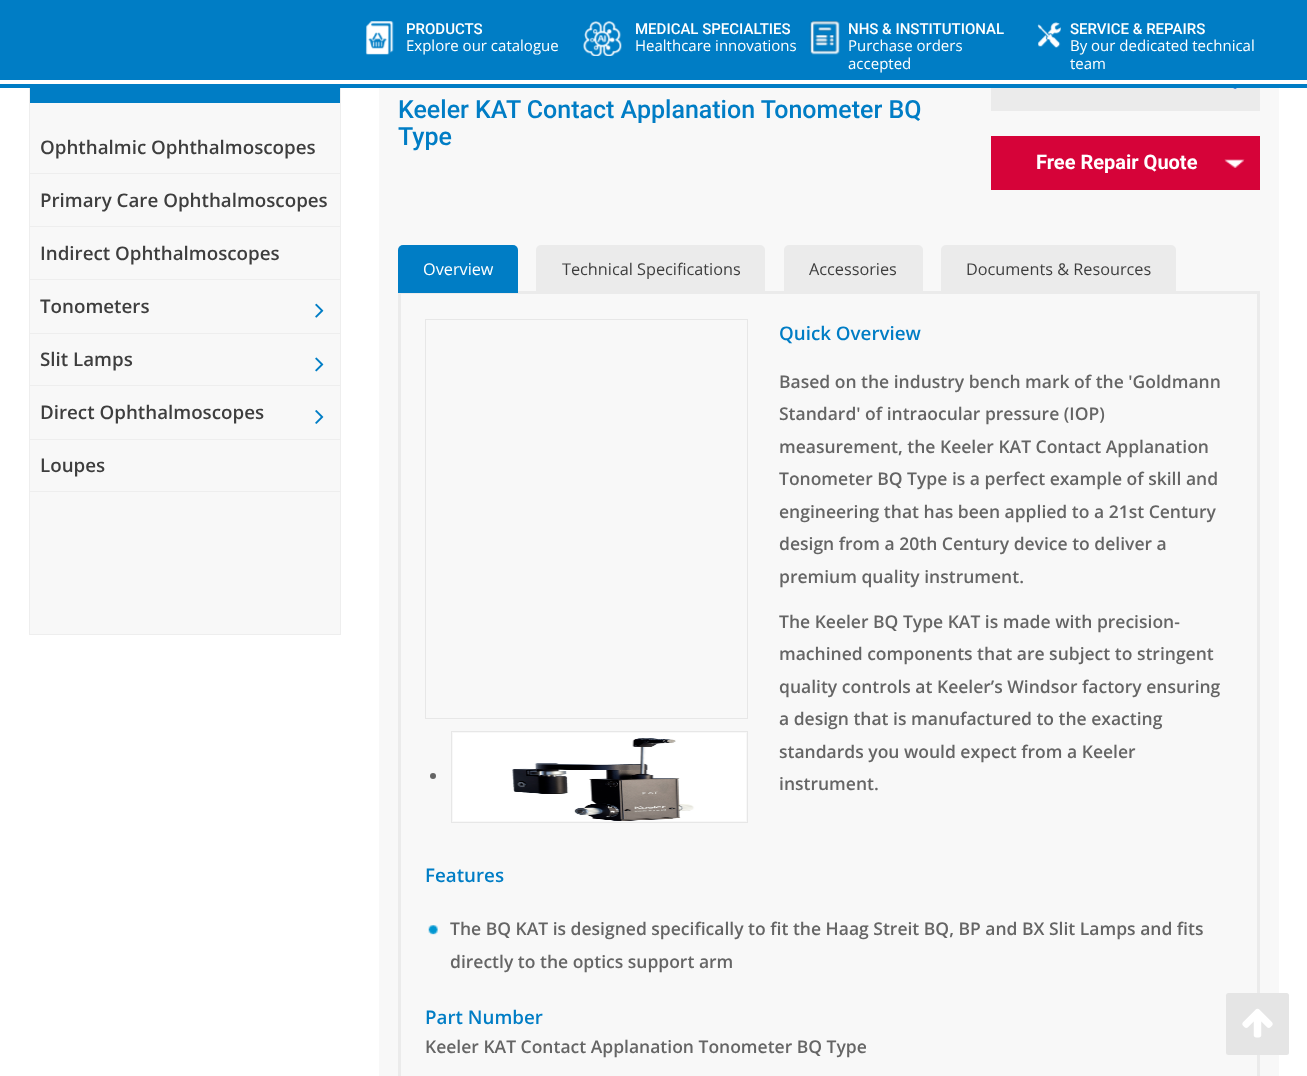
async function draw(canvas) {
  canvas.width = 1307;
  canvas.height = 1076;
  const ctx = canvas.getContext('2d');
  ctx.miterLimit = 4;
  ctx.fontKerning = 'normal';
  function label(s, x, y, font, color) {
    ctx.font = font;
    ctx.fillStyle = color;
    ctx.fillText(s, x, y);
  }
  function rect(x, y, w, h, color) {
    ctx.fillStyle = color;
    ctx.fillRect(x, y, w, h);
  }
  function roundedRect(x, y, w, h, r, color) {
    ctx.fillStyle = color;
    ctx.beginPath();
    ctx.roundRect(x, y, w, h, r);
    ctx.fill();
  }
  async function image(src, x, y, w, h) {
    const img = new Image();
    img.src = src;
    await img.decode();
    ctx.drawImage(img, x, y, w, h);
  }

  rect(0, 0, 1307, 1076, '#fff');
  rect(30, 103, 310, 531, '#f8f8f8');
  ctx.strokeStyle = '#eee';
  ctx.strokeRect(29.5, 39.5, 311, 595);
  rect(29, 80, 312, 4, '#fff');
  rect(0, 84, 1307, 4, '#007dc5');
  rect(0, 0, 1307, 80, '#007dc5');
  await image('assets/img1.png', 365, 21, 29, 34);
  label('PRODUCTS', 406, 34, '500 15px Roboto', '#fff');
  label('Explore our catalogue', 406, 51, '15px Open Sans', '#fff');
  await image('assets/img2.png', 583, 21, 39, 35);
  label('MEDICAL SPECIALTIES', 635, 34, '500 15px Roboto', '#fff');
  label('Healthcare innovations', 635, 51, '15px Open Sans', '#fff');
  await image('assets/img3.png', 809, 21, 31, 34);
  label('NHS & INSTITUTIONAL', 848, 34, '500 15px Roboto', '#fff');
  label('Purchase orders', 848, 51, '15px Open Sans', '#fff');
  label('accepted', 848, 69, '15px Open Sans', '#fff');
  await image('assets/img4.png', 1037, 22, 24, 26);
  label('SERVICE & REPAIRS', 1070, 34, '500 15px Roboto', '#fff');
  label('By our dedicated technical', 1070, 51, '15px Open Sans', '#fff');
  label('team', 1070, 69, '15px Open Sans', '#fff');
  rect(30, 88, 310, 15, '#007dc5');
  rect(30, 173, 310, 1, '#eee');
  label('Ophthalmic Ophthalmoscopes', 40, 154, '600 18.75px Open Sans', '#3e3e3e');
  rect(30, 226, 310, 1, '#eee');
  label('Primary Care Ophthalmoscopes', 40, 207, '600 18.75px Open Sans', '#3e3e3e');
  rect(30, 279, 310, 1, '#eee');
  label('Indirect Ophthalmoscopes', 40, 260, '600 18.75px Open Sans', '#3e3e3e');
  rect(30, 333, 310, 1, '#eee');
  label('Tonometers', 40, 313, '600 18.75px Open Sans', '#3e3e3e');
  await image('assets/img5.png', 315, 303, 9, 15);
  rect(30, 385, 310, 1, '#eee');
  label('Slit Lamps', 40, 366, '600 18.75px Open Sans', '#3e3e3e');
  await image('assets/img6.png', 315, 357, 9, 15);
  rect(30, 439, 310, 1, '#eee');
  label('Direct Ophthalmoscopes', 40, 419, '600 18.75px Open Sans', '#3e3e3e');
  await image('assets/img7.png', 315, 410, 9, 14);
  rect(30, 491, 310, 1, '#eee');
  label('Loupes', 40, 472, '600 18.75px Open Sans', '#3e3e3e');
  rect(379, 88, 900, 988, '#f8f8f8');
  label('Keeler KAT Contact Applanation Tonometer BQ', 398, 118, '500 25px Roboto', '#007dc5');
  label('Type', 398, 145, '500 25px Roboto', '#007dc5');
  rect(991, 88, 269, 23, '#ebebeb');
  await image('assets/img8.png', 1233, 88, 4, 1);
  rect(991, 136, 269, 54, '#d60339');
  await image('assets/img9.png', 1224, 159, 21, 9);
  label('Free Repair Quote', 1036, 169, 'bold 20px Roboto', '#fff');
  ctx.strokeStyle = '#ebebeb';
  ctx.lineWidth = 3;
  ctx.strokeRect(399.5, 292.5, 859, 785);
  ctx.fillStyle = '#007dc5';
  ctx.beginPath();
  ctx.roundRect(398, 245, 120, 48, [5, 5, 0, 0]);
  ctx.fill();
  label('Overview', 423, 275, '16.25px Open Sans', '#fff');
  ctx.fillStyle = '#ebebeb';
  ctx.beginPath();
  ctx.roundRect(536, 245, 229, 48, [5, 5, 0, 0]);
  ctx.fill();
  label('Technical Specifications', 562, 275, '16.25px Open Sans', '#3e3e3e');
  ctx.fillStyle = '#ebebeb';
  ctx.beginPath();
  ctx.roundRect(784, 245, 139, 48, [5, 5, 0, 0]);
  ctx.fill();
  label('Accessories', 809, 275, '16.25px Open Sans', '#3e3e3e');
  ctx.fillStyle = '#ebebeb';
  ctx.beginPath();
  ctx.roundRect(941, 245, 235, 48, [5, 5, 0, 0]);
  ctx.fill();
  label('Documents & Resources', 966, 275, '16.25px Open Sans', '#3e3e3e');
  ctx.strokeStyle = '#e7e7e7';
  ctx.lineWidth = 1;
  ctx.strokeRect(425.5, 319.5, 322, 399);
  ctx.strokeRect(451.5, 731.5, 296, 91);
  ctx.fillStyle = '#656565';
  ctx.beginPath();
  ctx.arc(433, 776, 3, 0, 2 * Math.PI);
  ctx.fill();
  await image('assets/img10.png', 453, 733, 293, 88);
  label('Quick Overview', 779, 340, '600 18.75px Open Sans', '#007dc5');
  label('Based on the industry bench mark of the \'Goldmann', 779, 388, '600 17.5px Open Sans', '#656565');
  label('Standard\' of intraocular pressure (IOP)', 779, 420, '600 17.5px Open Sans', '#656565');
  label('measurement, the Keeler KAT Contact Applanation', 779, 453, '600 17.5px Open Sans', '#656565');
  label('Tonometer BQ Type is a perfect example of skill and', 779, 485, '600 17.5px Open Sans', '#656565');
  label('engineering that has been applied to a 21st Century', 779, 518, '600 17.5px Open Sans', '#656565');
  label('design from a 20th Century device to deliver a', 779, 550, '600 17.5px Open Sans', '#656565');
  label('premium quality instrument.', 779, 583, '600 17.5px Open Sans', '#656565');
  label('The Keeler BQ Type KAT is made with precision-', 779, 628, '600 17.5px Open Sans', '#656565');
  label('machined components that are subject to stringent', 779, 660, '600 17.5px Open Sans', '#656565');
  label('quality controls at Keeler’s Windsor factory ensuring', 779, 693, '600 17.5px Open Sans', '#656565');
  label('a design that is manufactured to the exacting', 779, 725, '600 17.5px Open Sans', '#656565');
  label('standards you would expect from a Keeler', 779, 758, '600 17.5px Open Sans', '#656565');
  label('instrument.', 779, 790, '600 17.5px Open Sans', '#656565');
  label('Features', 425, 882, '600 18.75px Open Sans', '#007dc5');
  await image('assets/img11.png', 428, 925, 10, 10);
  label('The BQ KAT is designed specifically to fit the Haag Streit BQ, BP and BX Slit Lamps and fits', 450, 935, '600 17.5px Open Sans', '#656565');
  label('directly to the optics support arm', 450, 968, '600 17.5px Open Sans', '#656565');
  label('Part Number', 425, 1024, '600 18.75px Open Sans', '#007dc5');
  label('Keeler KAT Contact Applanation Tonometer BQ Type', 425, 1053, '600 17.5px Open Sans', '#656565');
  roundedRect(1226, 993, 63, 62, 2.5, '#e5e5e5');
  await image('assets/img12.png', 1242, 1008, 31, 30);
}

draw(document.querySelector('canvas'));
